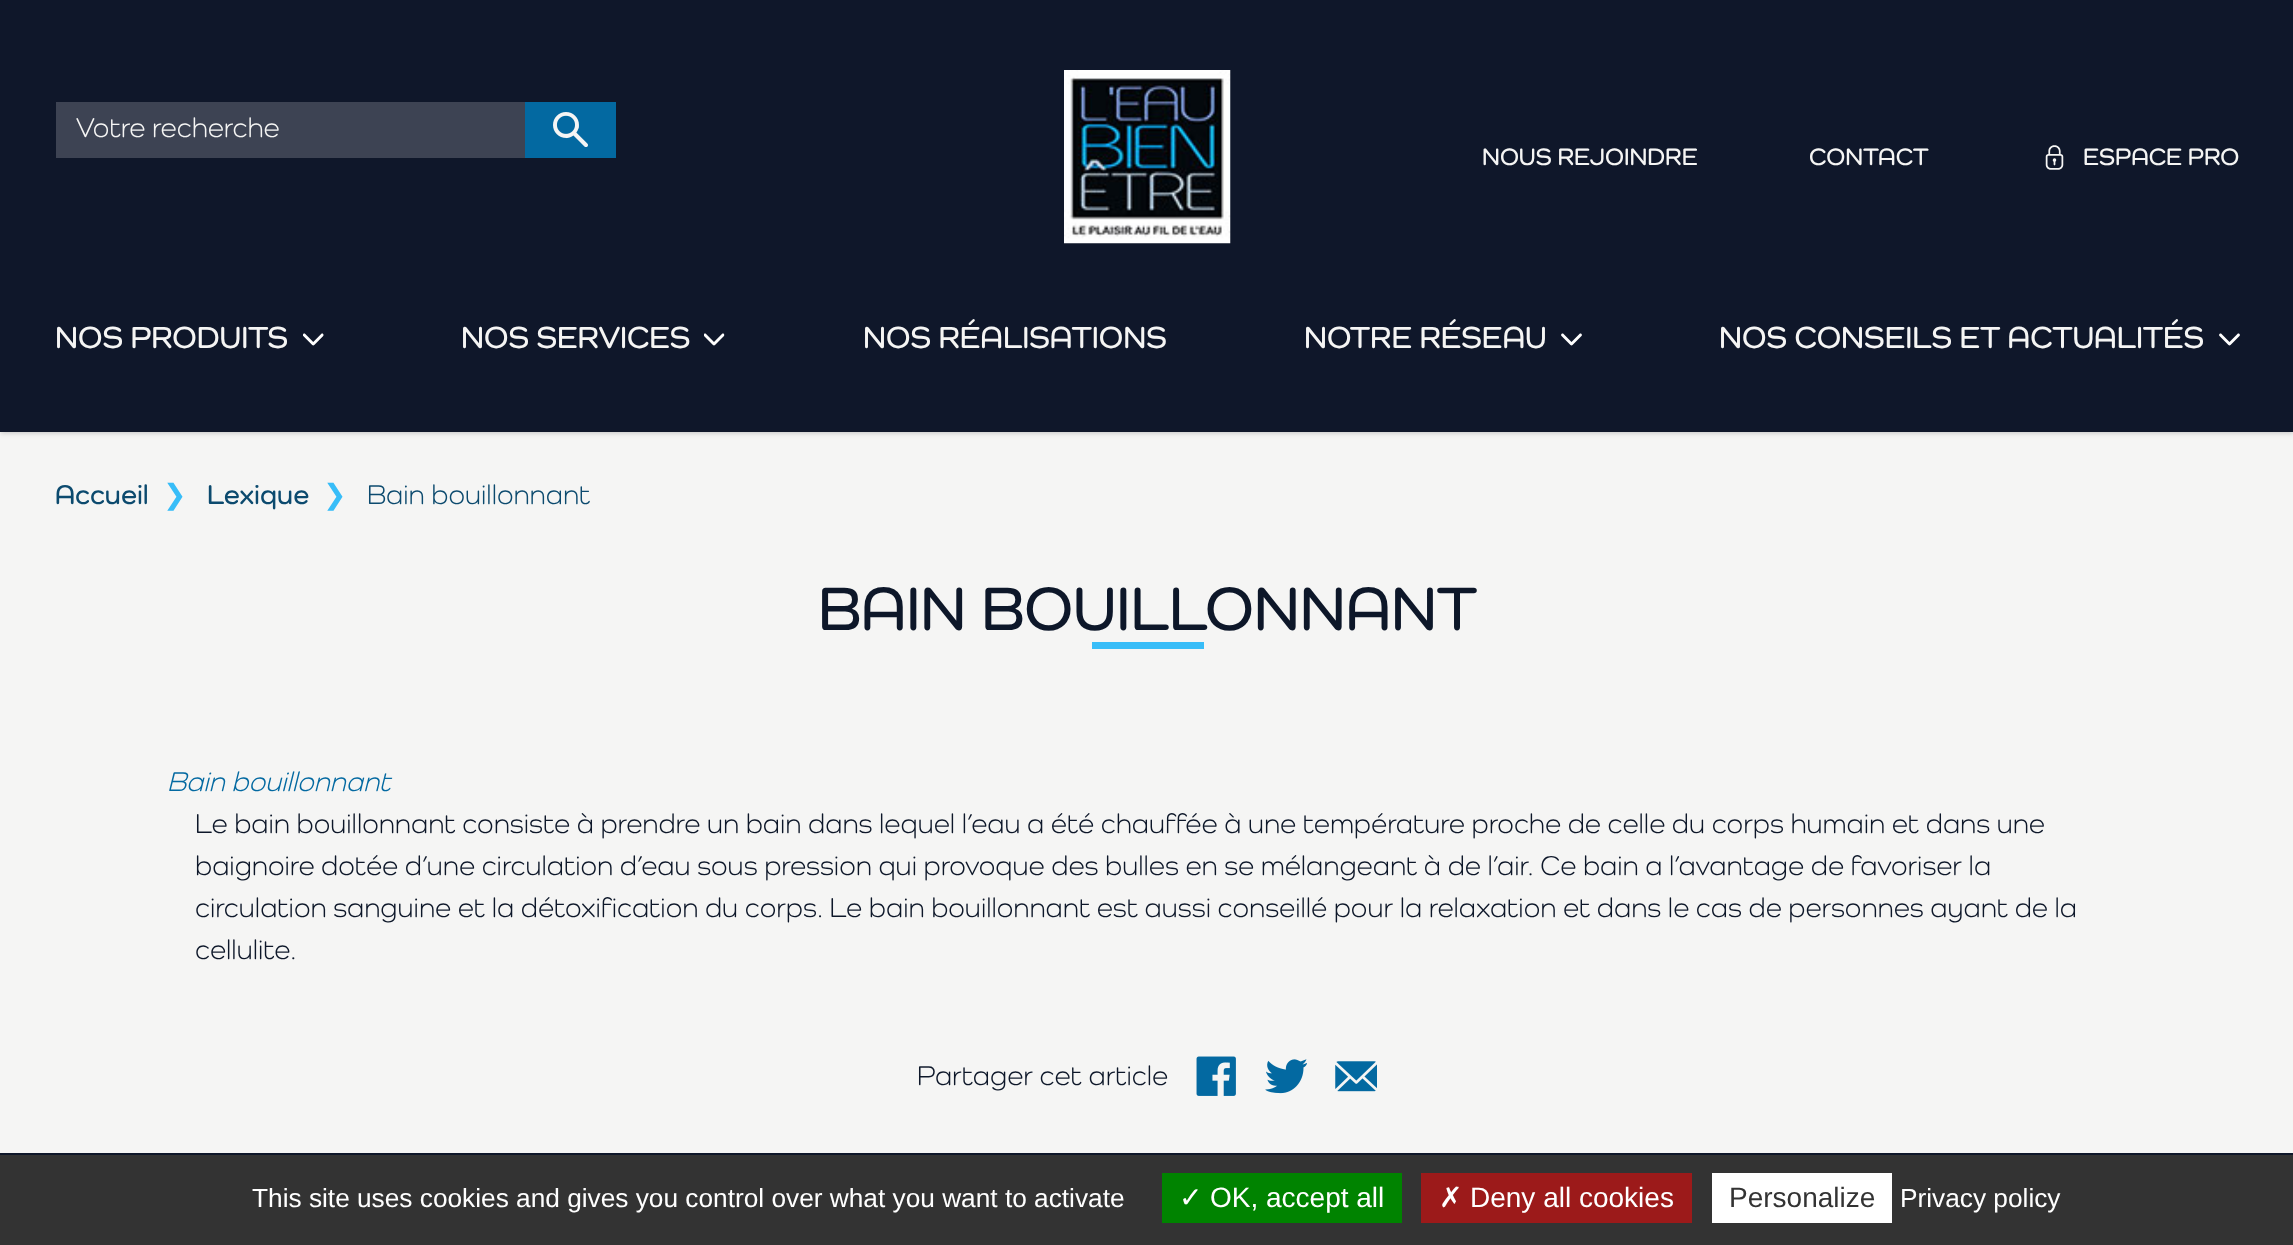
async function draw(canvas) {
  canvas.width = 2293;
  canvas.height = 1245;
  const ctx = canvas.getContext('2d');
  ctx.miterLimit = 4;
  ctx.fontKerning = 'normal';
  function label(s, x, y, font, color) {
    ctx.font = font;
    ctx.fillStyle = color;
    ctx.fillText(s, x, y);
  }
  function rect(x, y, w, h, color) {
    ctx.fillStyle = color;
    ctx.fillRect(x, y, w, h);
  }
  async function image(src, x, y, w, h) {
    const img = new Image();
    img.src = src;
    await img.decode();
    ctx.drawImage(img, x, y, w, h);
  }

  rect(0, 0, 2293, 1245, '#f5f5f4');
  ctx.fillStyle = '#0000001a';
  ctx.filter = 'blur(2px)';
  ctx.beginPath();
  ctx.rect(2, 4, 2291, 428);
  ctx.fill();
  ctx.filter = 'none';
  ctx.filter = 'blur(2.5px)';
  ctx.beginPath();
  ctx.rect(0, 2, 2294, 432);
  ctx.fill();
  ctx.filter = 'none';
  rect(0, 0, 2293, 432, '#0f172a');
  rect(56, 102, 469, 56, '#3d4353');
  label('Votre recherche', 76, 137, '28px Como', '#f5f5f4');
  rect(525, 102, 91, 56, '#0369a1');
  await image('assets/img1.png', 553, 112, 35, 35);
  await image('assets/img2.png', 1064, 70, 167, 174);
  label('NOUS REJOINDRE', 1482, 165, '600 24.5px Como', '#f5f5f4');
  label('CONTACT', 1809, 165, '600 24.5px Como', '#f5f5f4');
  await image('assets/img3.png', 2045, 145, 19, 25);
  label('ESPACE PRO', 2083, 165, '600 24.5px Como', '#f5f5f4');
  label('NOS PRODUITS', 55, 348, '600 31.5px Como', '#f5f5f4');
  await image('assets/img4.png', 303, 333, 21, 13);
  label('NOS SERVICES', 461, 348, '600 31.5px Como', '#f5f5f4');
  await image('assets/img5.png', 704, 333, 21, 13);
  label('NOS RÉALISATIONS', 863, 348, '600 31.5px Como', '#f5f5f4');
  label('NOTRE RÉSEAU', 1304, 348, '600 31.5px Como', '#f5f5f4');
  await image('assets/img6.png', 1561, 333, 21, 13);
  label('NOS CONSEILS ET ACTUALITÉS', 1719, 348, '600 31.5px Como', '#f5f5f4');
  await image('assets/img6.png', 2219, 333, 21, 13);
  label('Accueil', 55, 504, '600 28px Como', '#0c4a6e');
  label('❯', 163, 504, '28px DejaVu Sans', '#38bdf8');
  label('Lexique', 207, 504, '600 28px Como', '#0c4a6e');
  label('❯', 323, 504, '28px DejaVu Sans', '#38bdf8');
  label('Bain bouillonnant', 367, 504, '28px Como', '#0c4a6e');
  label('BAIN BOUILLONNANT', 818, 630, '600 63px Como', '#0d1729');
  rect(1092, 642, 112, 7, '#38bdf8');
  label('Bain bouillonnant', 167, 791, 'italic 28px Como', '#0369a1');
  label('Le bain bouillonnant consiste à prendre un bain dans lequel l’eau a été chauffée à une température proche de celle du corps humain et dans une', 195, 833, '28px Como', '#0d1729');
  label('baignoire dotée d’une circulation d’eau sous pression qui provoque des bulles en se mélangeant à de l’air. Ce bain a l’avantage de favoriser la', 195, 875, '28px Como', '#0d1729');
  label('circulation sanguine et la détoxification du corps. Le bain bouillonnant est aussi conseillé pour la relaxation et dans le cas de personnes ayant de la', 195, 917, '28px Como', '#0d1729');
  label('cellulite.', 195, 959, '28px Como', '#0d1729');
  label('Partager cet article', 917, 1085, '28px Como', '#0d1729');
  await image('assets/img7.png', 1196, 1056, 40, 40);
  await image('assets/img8.png', 1265, 1059, 42, 35);
  await image('assets/img9.png', 1335, 1061, 42, 31);
  rect(0, 1153, 2293, 2, '#0f172a');
  rect(0, 1155, 2293, 90, '#333');
  label('This site uses cookies and gives you control over what you want to activate', 252, 1207, '26.25px Liberation Sans', '#fff');
  rect(1162, 1173, 240, 50, '#008300');
  label('✓', 1179, 1207, '28px DejaVu Sans', '#fff');
  label('OK, accept all', 1210, 1207, '28px Liberation Sans', '#fff');
  rect(1421, 1173, 271, 50, '#9c1a1a');
  label('✗', 1439, 1207, '28px DejaVu Sans', '#fff');
  label('Deny all cookies', 1470, 1207, '28px Liberation Sans', '#fff');
  rect(1712, 1173, 180, 50, '#fff');
  label('Personalize', 1729, 1207, '28px Liberation Sans', '#333');
  label('Privacy policy', 1900, 1207, '26.25px Liberation Sans', '#fff');
}

draw(document.querySelector('canvas'));
